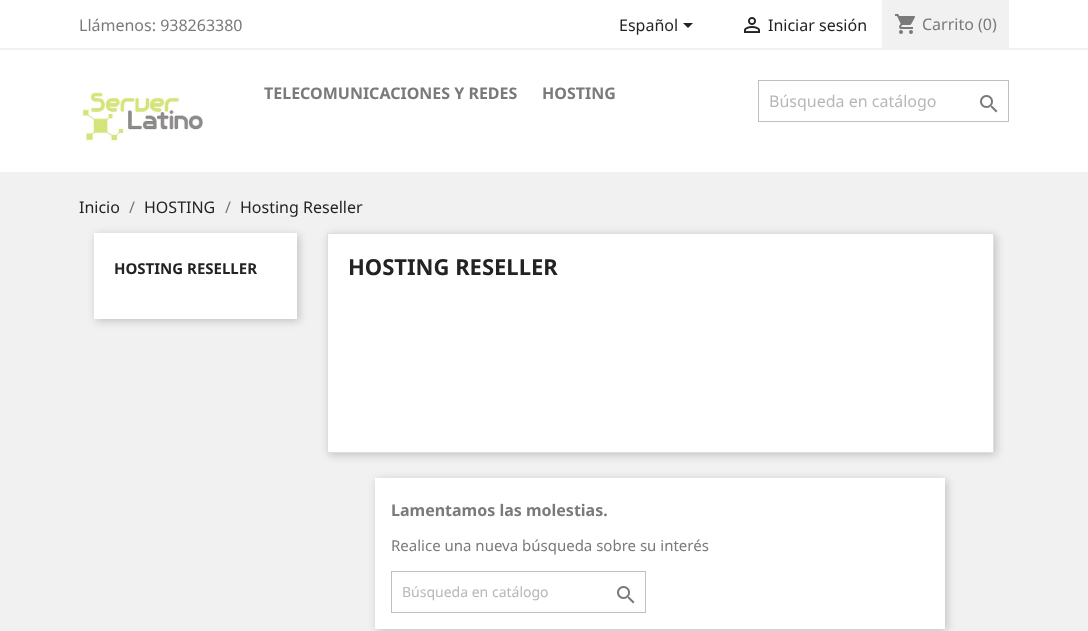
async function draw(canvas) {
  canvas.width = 1088;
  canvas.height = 631;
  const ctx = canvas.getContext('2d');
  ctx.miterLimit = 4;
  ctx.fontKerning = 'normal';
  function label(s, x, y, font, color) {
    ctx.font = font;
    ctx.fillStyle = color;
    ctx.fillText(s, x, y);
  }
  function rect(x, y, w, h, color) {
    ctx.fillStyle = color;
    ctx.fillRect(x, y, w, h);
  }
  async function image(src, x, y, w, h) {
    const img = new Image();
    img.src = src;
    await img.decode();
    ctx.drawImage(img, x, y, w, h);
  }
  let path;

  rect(0, 0, 1088, 631, '#fff');
  rect(0, 48, 1088, 2, '#f1f1f1');
  label('Llámenos: 938263380', 79, 31, '16px Noto Sans', '#7a7a7a');
  label('Español', 619, 31, '16px Noto Sans', '#232323');
  path = new Path2D('M683 23H693L688 28Z');
  ctx.fill(path);
  await image('assets/img1.png', 744, 17, 16, 16);
  label('Iniciar sesión', 768, 31, '16px Noto Sans', '#232323');
  rect(882, 0, 127, 48, '#f1f1f1');
  await image('assets/img2.png', 895, 14, 20, 20);
  label('Carrito (0)', 922, 30, '16px Noto Sans', '#7a7a7a');
  await image('assets/img3.png', 82, 91, 121, 52);
  label('TELECOMUNICACIONES Y REDES', 264, 99, 'bold 16px Noto Sans', '#7a7a7a');
  label('HOSTING', 542, 99, 'bold 16px Noto Sans', '#7a7a7a');
  ctx.strokeStyle = '#bfbfbf';
  ctx.strokeRect(758.5, 80.5, 250, 41);
  label('Búsqueda en catálogo', 769, 107, '16px Noto Sans', '#b7b7b7');
  await image('assets/img4.png', 980, 95, 18, 18);
  rect(0, 172, 1088, 459, '#f1f1f1');
  label('Inicio', 79, 213, '16px Noto Sans', '#232323');
  label('/', 129, 213, '16px Noto Sans', '#7a7a7a');
  label('HOSTING', 144, 213, '16px Noto Sans', '#232323');
  label('/', 225, 213, '16px Noto Sans', '#7a7a7a');
  label('Hosting Reseller', 240, 213, '16px Noto Sans', '#232323');
  ctx.fillStyle = '#00000033';
  ctx.filter = 'blur(4px)';
  ctx.beginPath();
  ctx.rect(96, 235, 203, 86);
  ctx.fill();
  ctx.filter = 'none';
  rect(94, 233, 203, 86, '#fff');
  label('HOSTING RESELLER', 114, 274, 'bold 15px Noto Sans', '#232323');
  ctx.fillStyle = '#00000033';
  ctx.filter = 'blur(4px)';
  ctx.beginPath();
  ctx.rect(329, 235, 667, 220);
  ctx.fill();
  ctx.filter = 'none';
  ctx.fillStyle = '#fff';
  ctx.beginPath();
  ctx.rect(327.5, 233.5, 666, 219);
  ctx.fill();
  ctx.strokeStyle = '#dfdfdf';
  ctx.stroke();
  label('HOSTING RESELLER', 348, 275, 'bold 22px Noto Sans', '#232323');
  ctx.fillStyle = '#00000033';
  ctx.filter = 'blur(4px)';
  ctx.beginPath();
  ctx.rect(377, 480, 570, 151);
  ctx.fill();
  ctx.filter = 'none';
  rect(375, 478, 570, 151, '#fff');
  label('Lamentamos las molestias.', 391, 516, 'bold 16px Noto Sans', '#7a7a7a');
  label('Realice una nueva búsqueda sobre su interés', 391, 551, '15px Noto Sans', '#7a7a7a');
  ctx.strokeStyle = '#bfbfbf';
  ctx.strokeRect(391.5, 571.5, 254, 41);
  label('Búsqueda en catálogo', 402, 597, '14px Noto Sans', '#b7b7b7');
  await image('assets/img4.png', 617, 586, 18, 18);
}

draw(document.querySelector('canvas'));
